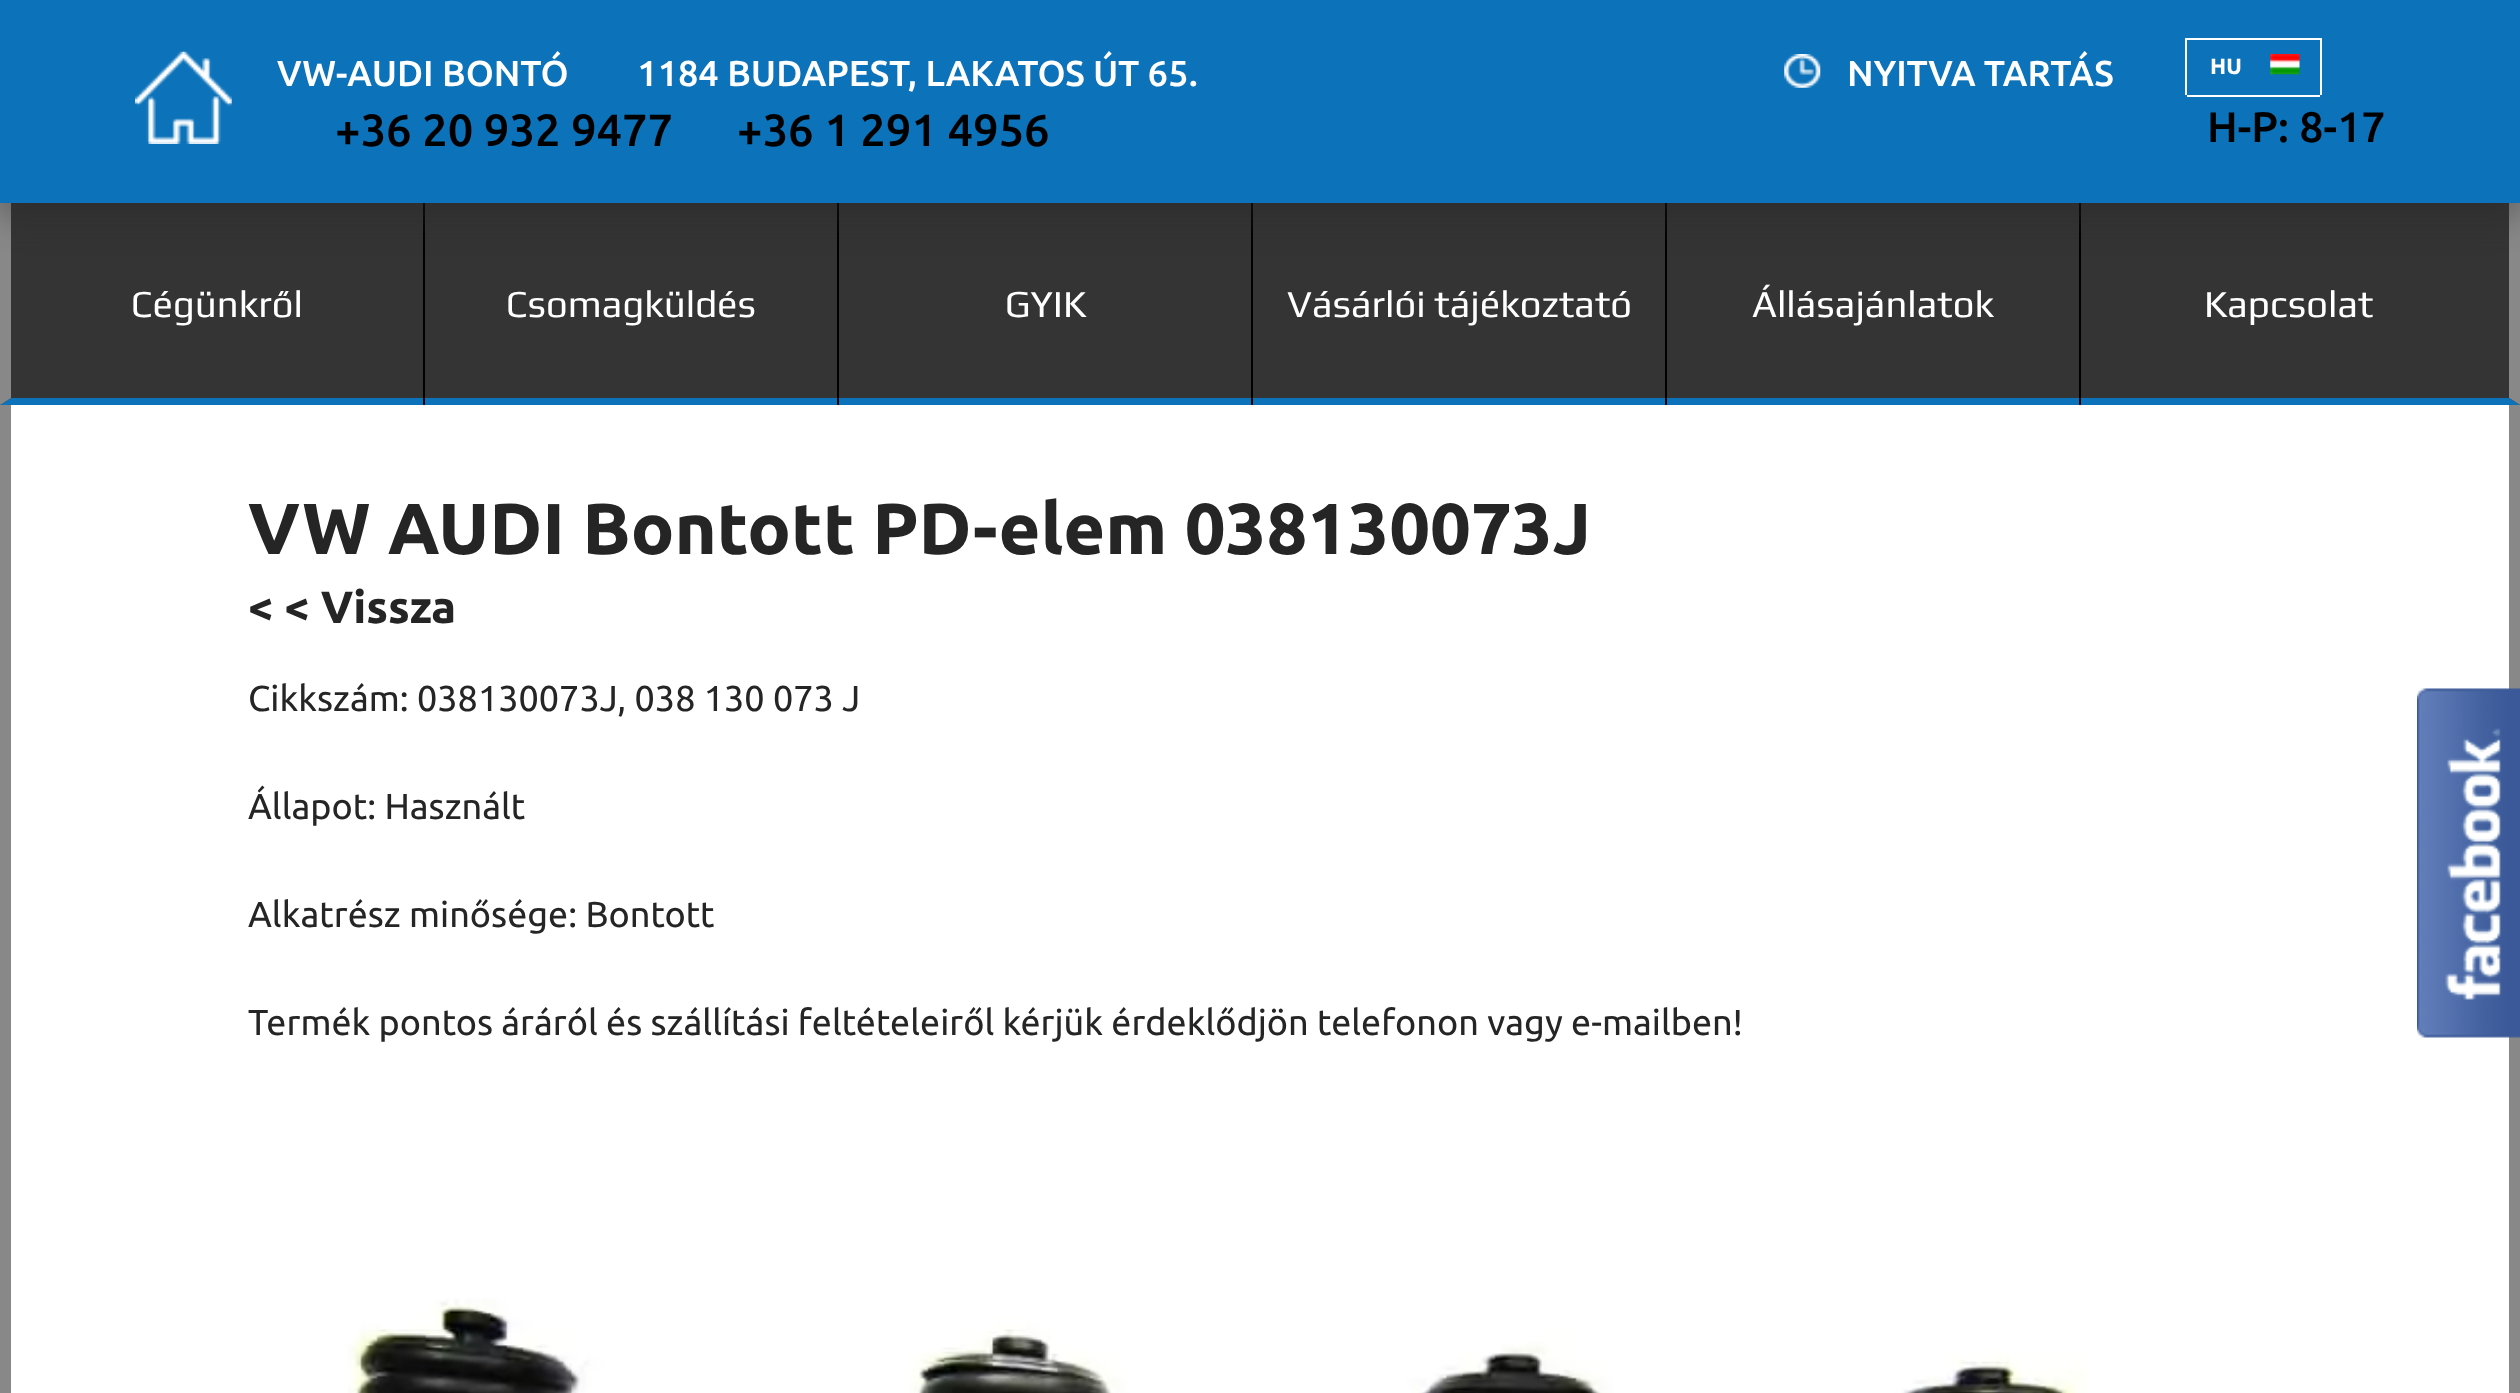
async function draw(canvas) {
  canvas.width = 2520;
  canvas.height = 1393;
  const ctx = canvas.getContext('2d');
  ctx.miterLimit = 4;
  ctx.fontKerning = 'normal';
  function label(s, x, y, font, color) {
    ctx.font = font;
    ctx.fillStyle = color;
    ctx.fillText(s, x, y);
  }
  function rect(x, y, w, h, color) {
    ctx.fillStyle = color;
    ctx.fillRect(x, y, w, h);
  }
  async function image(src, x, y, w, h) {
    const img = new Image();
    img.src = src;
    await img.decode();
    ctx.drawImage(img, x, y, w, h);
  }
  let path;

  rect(0, 0, 2520, 1393, '#343434');
  ctx.fillStyle = '#888';
  path = new Path2D('M2520 202V405L2509 398V202Z');
  ctx.fill(path);
  ctx.fillStyle = '#0c72b9';
  path = new Path2D('M2520 405H0L11 398H2509Z');
  ctx.fill(path);
  ctx.fillStyle = '#888';
  path = new Path2D('M0 405V202H11V398Z');
  ctx.fill(path);
  rect(423, 203, 2, 202, '#000');
  rect(837, 203, 2, 202, '#000');
  rect(1251, 203, 2, 202, '#000');
  rect(1665, 203, 2, 202, '#000');
  rect(2079, 203, 2, 202, '#000');
  ctx.fillStyle = '#26262673';
  ctx.filter = 'blur(17px)';
  ctx.beginPath();
  ctx.rect(0, 14, 2520, 202);
  ctx.fill();
  ctx.filter = 'none';
  rect(0, 0, 2520, 203, '#0c72b9');
  await image('assets/img1.png', 135, 51, 97, 93);
  label('VW-AUDI BONTÓ', 277, 86, '500 36px Ubuntu', '#fff');
  label('1184 BUDAPEST, LAKATOS ÚT 65.', 637, 86, '500 36px Ubuntu', '#fff');
  label('+36 20 932 9477', 335, 146, '500 45px Ubuntu', '#000');
  label('+36 1 291 4956', 737, 146, '500 45px Ubuntu', '#000');
  await image('assets/img2.png', 1784, 54, 37, 34);
  label('NYITVA TARTÁS', 1847, 86, '500 36px Ubuntu', '#fff');
  rect(2185, 38, 137, 2, '#fff');
  rect(2320, 38, 2, 57, '#fff');
  rect(2185, 38, 2, 57, '#fff');
  rect(2187, 95, 133, 2, '#fff');
  label('HU', 2210, 74, 'bold 22px Ubuntu', '#fff');
  await image('assets/img3.png', 2270, 54, 30, 21);
  label('H-P: 8-17', 2207, 142, '500 42.75px Ubuntu', '#000');
  label('Cégünkről', 131, 317, '38.25px Play', '#fff');
  label('Csomagküldés', 506, 317, '38.25px Play', '#fff');
  label('GYIK', 1005, 317, '38.25px Play', '#fff');
  label('Vásárlói tájékoztató', 1287, 317, '38.25px Play', '#fff');
  label('Állásajánlatok', 1752, 317, '38.25px Play', '#fff');
  label('Kapcsolat', 2204, 317, '38.25px Play', '#fff');
  rect(11, 405, 2498, 988, '#fff');
  rect(2509, 405, 11, 988, '#888');
  rect(0, 405, 11, 988, '#888');
  label('VW AUDI Bontott PD-elem 038130073J', 248, 554, 'bold 72px Ubuntu', '#252525');
  label('< < Vissza', 248, 623, 'bold 45px Ubuntu', '#252525');
  label('Cikkszám: 038130073J, 038 130 073 J', 248, 711, '36px Ubuntu', '#252525');
  label('Állapot: Használt', 248, 819, '36px Ubuntu', '#252525');
  label('Alkatrész minősége: Bontott', 248, 927, '36px Ubuntu', '#252525');
  label('Termék pontos áráról és szállítási feltételeiről kérjük érdeklődjön telefonon vagy e-mailben!', 248, 1035, '36px Ubuntu', '#252525');
  await image('assets/img4.png', 348, 1298, 1739, 95);
  await image('assets/img5.png', 2417, 688, 103, 350);
}

draw(document.querySelector('canvas'));
